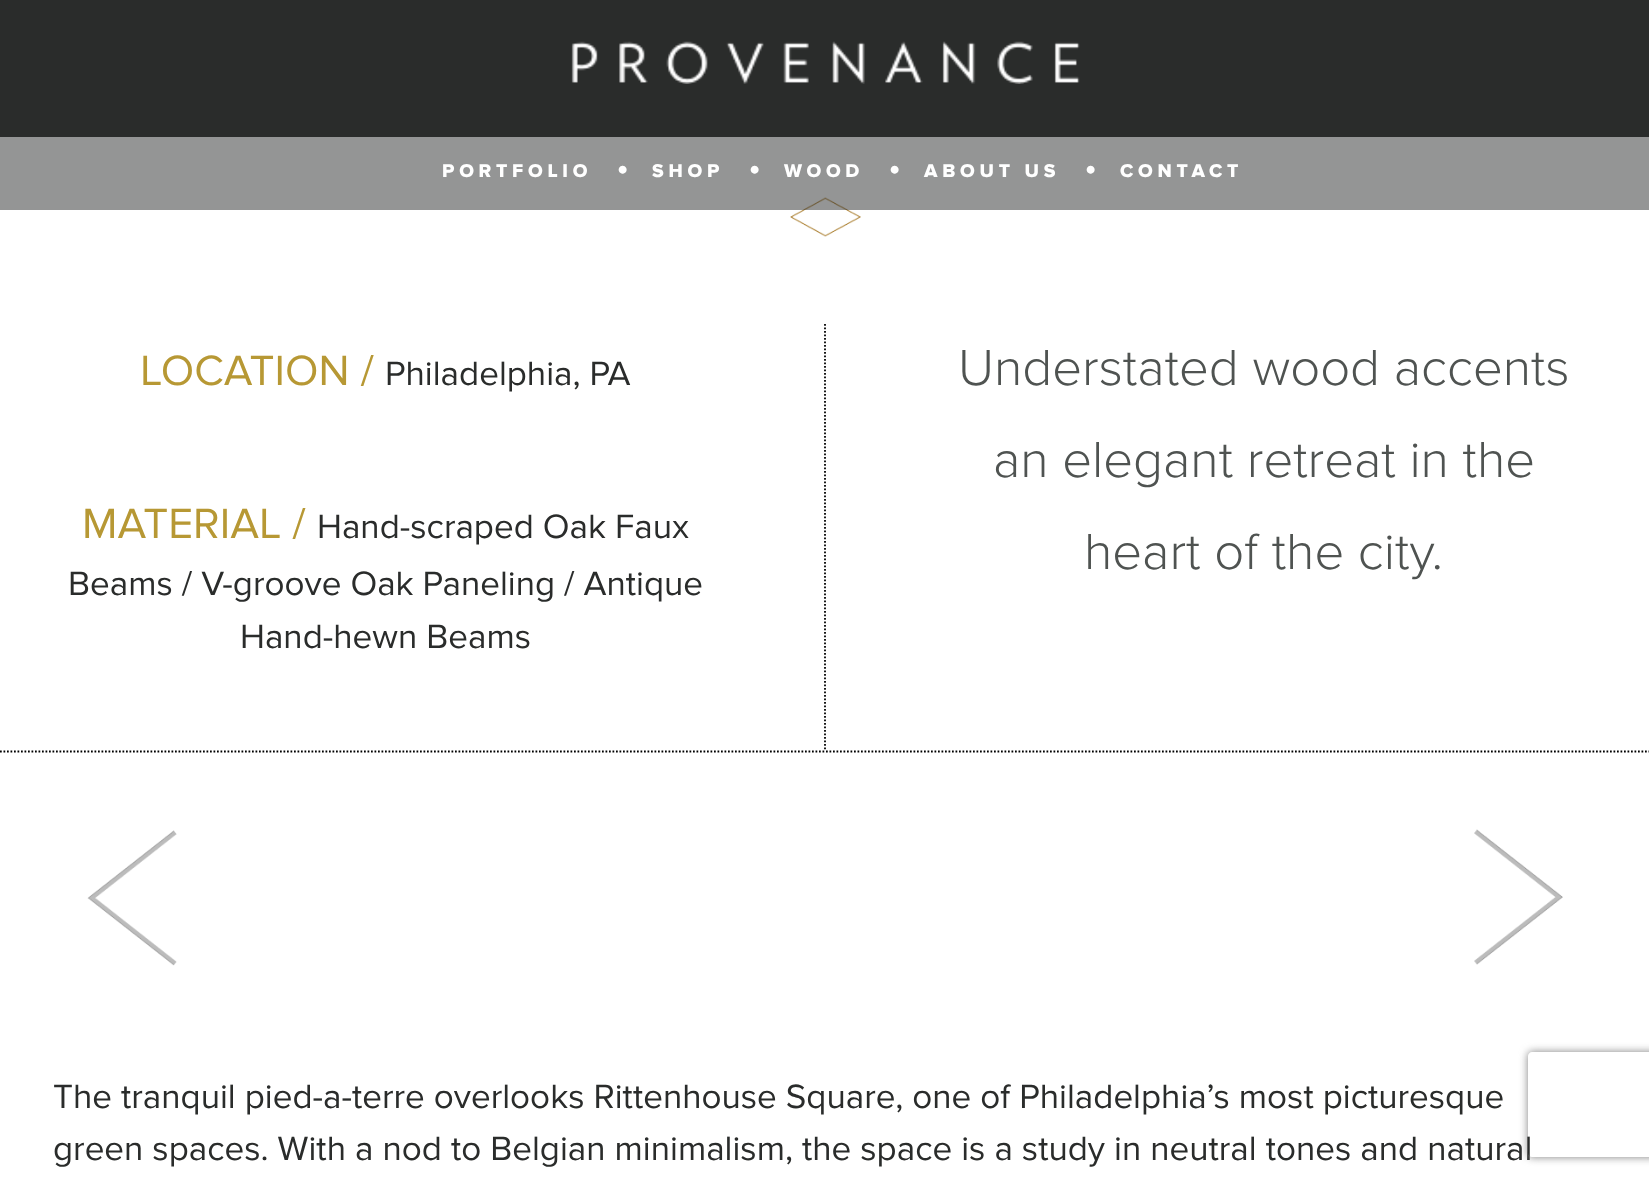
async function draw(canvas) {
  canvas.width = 1649;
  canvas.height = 1180;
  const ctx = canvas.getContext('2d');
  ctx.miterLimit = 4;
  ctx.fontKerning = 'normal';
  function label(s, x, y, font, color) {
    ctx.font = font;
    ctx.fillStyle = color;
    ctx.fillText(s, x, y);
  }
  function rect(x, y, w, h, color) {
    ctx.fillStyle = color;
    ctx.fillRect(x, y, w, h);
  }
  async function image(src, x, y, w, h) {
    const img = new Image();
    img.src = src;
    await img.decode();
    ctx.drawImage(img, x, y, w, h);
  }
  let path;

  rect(0, 0, 1649, 1180, '#fff');
  rect(0, 0, 1649, 137, '#2a2c2b');
  await image('assets/img1.png', 571, 41, 509, 43);
  await image('assets/img2.png', 790, 197, 71, 40);
  rect(0, 137, 1649, 73, '#2a2c2b80');
  ctx.letterSpacing = '4.75px';
  label('PORTFOLIO', 442, 177, '800 19.25px Proxima Nova', '#fff');
  label('·', 617, 180, '800 42px Proxima Nova', '#fff');
  label('SHOP', 652, 177, '800 19.25px Proxima Nova', '#fff');
  label('·', 749, 180, '800 42px Proxima Nova', '#fff');
  label('WOOD', 784, 177, '800 19.25px Proxima Nova', '#fff');
  label('·', 889, 180, '800 42px Proxima Nova', '#fff');
  label('ABOUT US', 924, 177, '800 19.25px Proxima Nova', '#fff');
  label('·', 1085, 180, '800 42px Proxima Nova', '#fff');
  label('CONTACT', 1120, 177, '800 19.25px Proxima Nova', '#fff');
  path = new Path2D('M0 751.5H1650');
  ctx.strokeStyle = '#000';
  ctx.lineWidth = 1.8;
  ctx.setLineDash([1.75, 1.75]);
  ctx.stroke(path);
  path = new Path2D('M825 324V751');
  ctx.stroke(path);
  ctx.letterSpacing = '0px';
  label('LOCATION /', 140, 385, '43.75px Proxima Nova', '#b79834');
  label('Philadelphia, PA', 385, 385, '35px Proxima Nova', '#2a2c2b');
  label('MATERIAL /', 82, 538, '43.75px Proxima Nova', '#b79834');
  label('Hand-scraped Oak Faux', 317, 538, '35px Proxima Nova', '#2a2c2b');
  label('Beams / V-groove Oak Paneling / Antique', 68, 595, '35px Proxima Nova', '#2a2c2b');
  label('Hand-hewn Beams', 240, 648, '35px Proxima Nova', '#2a2c2b');
  label('Understated wood accents', 958, 385, '300 52.5px Proxima Nova', '#4f5351');
  label('an elegant retreat in the', 993, 477, '300 52.5px Proxima Nova', '#4f5351');
  label('heart of the city.', 1084, 569, '300 52.5px Proxima Nova', '#4f5351');
  await image('assets/img3.png', 87, 830, 90, 136);
  await image('assets/img4.png', 1474, 829, 89, 136);
  label('The tranquil pied-a-terre overlooks Rittenhouse Square, one of Philadelphia’s most picturesque', 53, 1108, '35px Proxima Nova', '#2a2c2b');
  label('green spaces. With a nod to Belgian minimalism, the space is a study in neutral tones and natural', 53, 1160, '35px Proxima Nova', '#2a2c2b');
  ctx.save();
  path = new Path2D('M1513 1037H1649V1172H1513ZM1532 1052H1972C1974 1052 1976 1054 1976 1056V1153C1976 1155 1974 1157 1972 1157H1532C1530 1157 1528 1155 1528 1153V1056C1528 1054 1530 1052 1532 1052Z');
  ctx.clip(path, 'evenodd');
  ctx.fillStyle = '#808080';
  ctx.filter = 'blur(4.5px)';
  ctx.beginPath();
  ctx.roundRect(1528, 1052, 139, 105, 4);
  ctx.fill();
  ctx.filter = 'none';
  ctx.restore();
}

draw(document.querySelector('canvas'));
